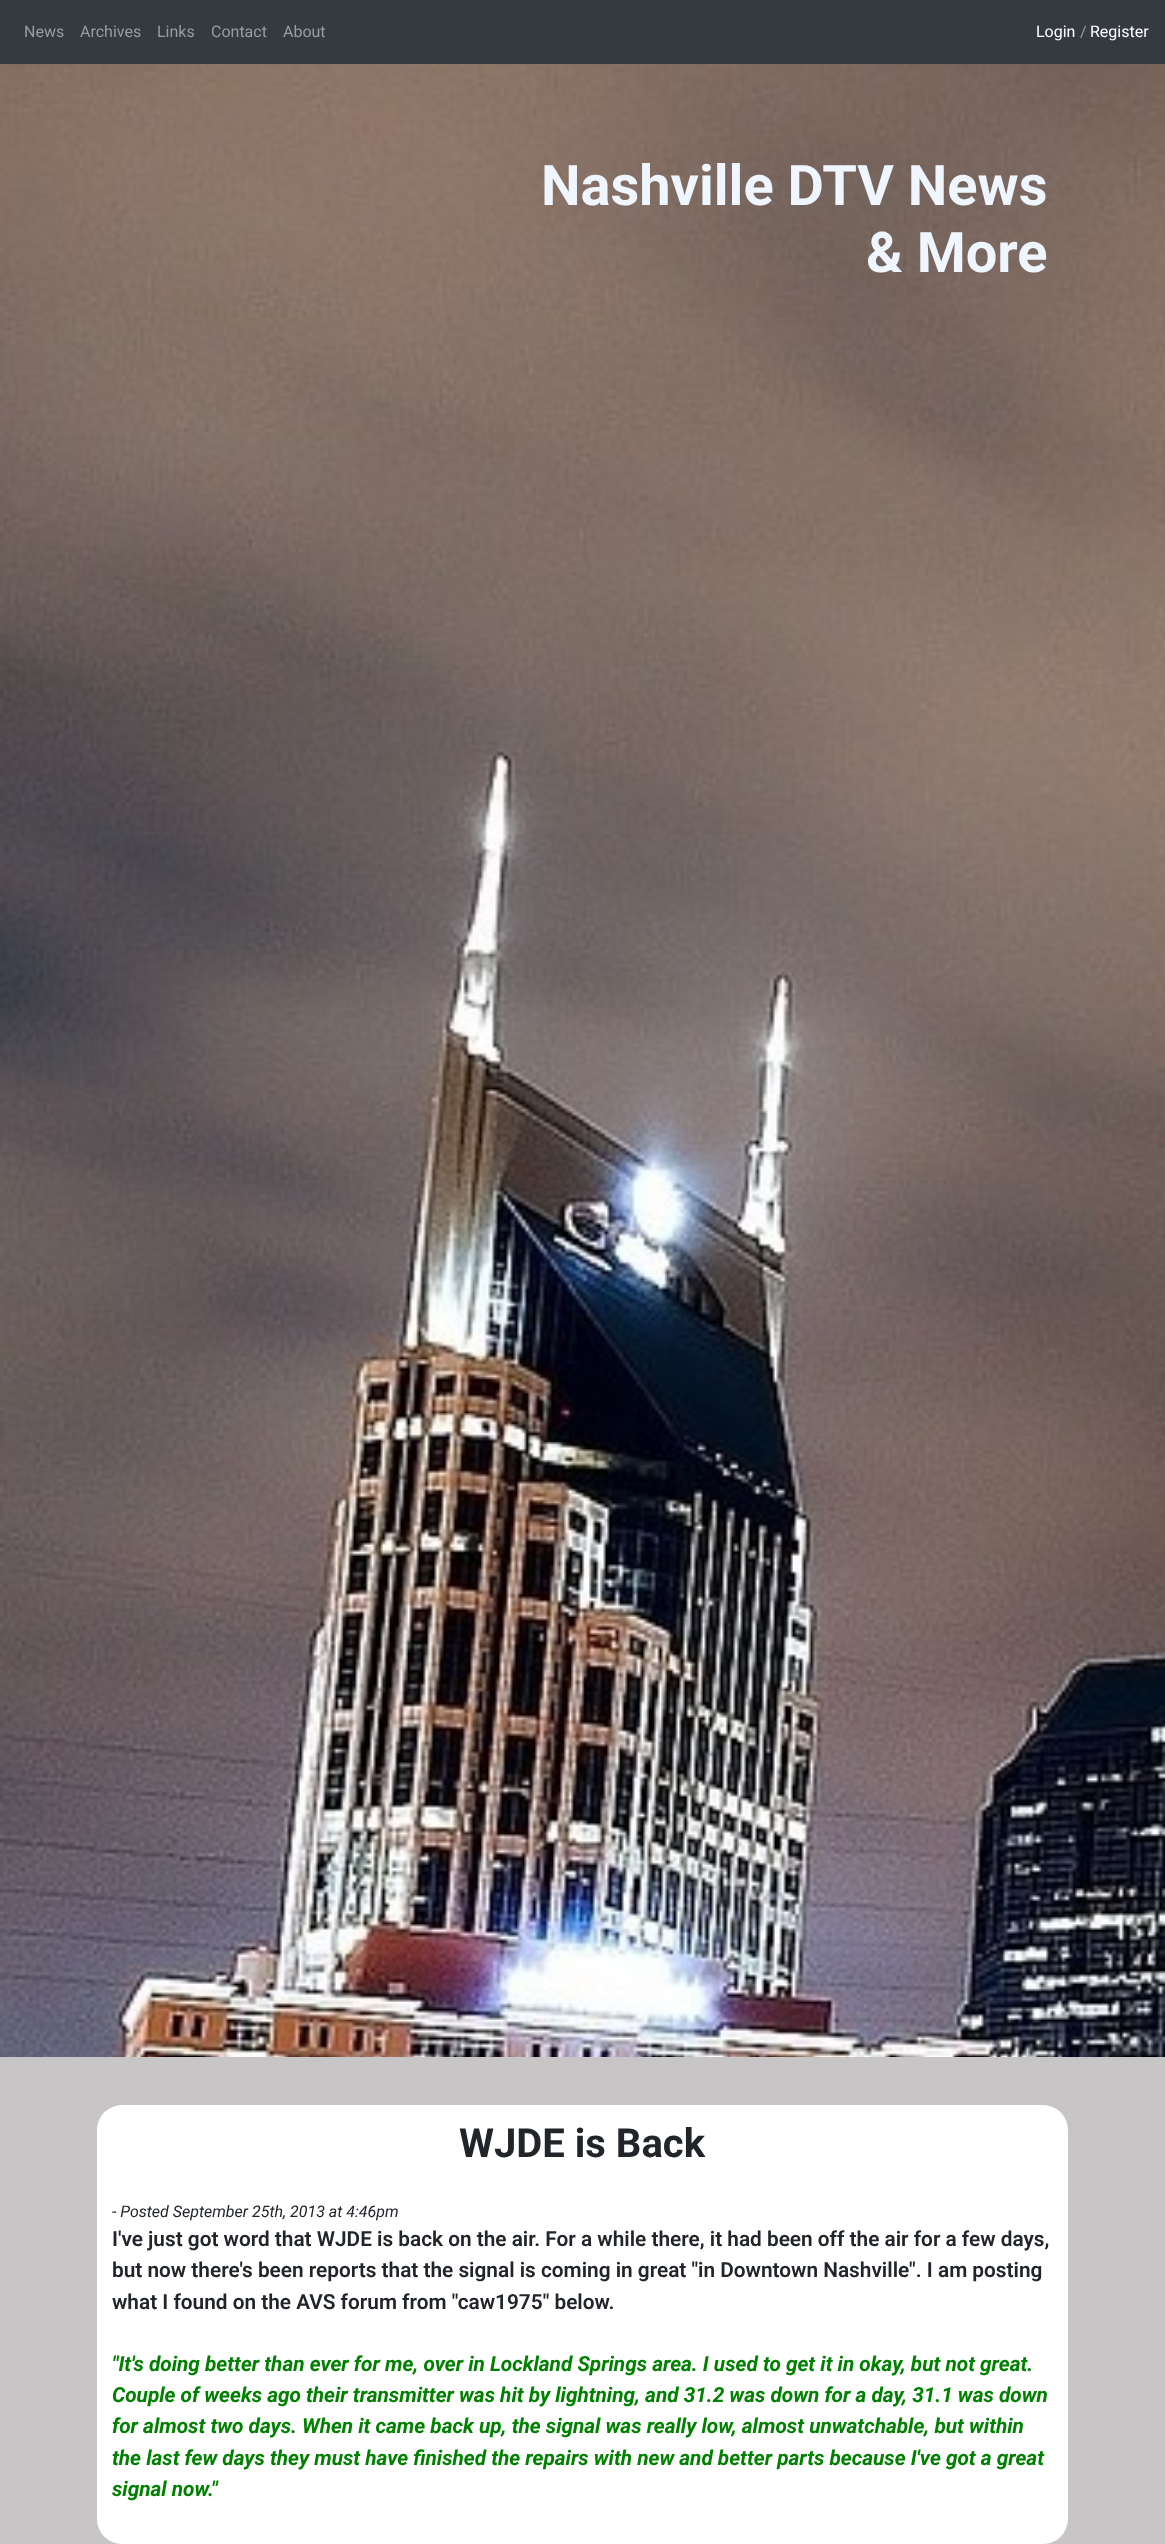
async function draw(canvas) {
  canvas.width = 1165;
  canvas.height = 2544;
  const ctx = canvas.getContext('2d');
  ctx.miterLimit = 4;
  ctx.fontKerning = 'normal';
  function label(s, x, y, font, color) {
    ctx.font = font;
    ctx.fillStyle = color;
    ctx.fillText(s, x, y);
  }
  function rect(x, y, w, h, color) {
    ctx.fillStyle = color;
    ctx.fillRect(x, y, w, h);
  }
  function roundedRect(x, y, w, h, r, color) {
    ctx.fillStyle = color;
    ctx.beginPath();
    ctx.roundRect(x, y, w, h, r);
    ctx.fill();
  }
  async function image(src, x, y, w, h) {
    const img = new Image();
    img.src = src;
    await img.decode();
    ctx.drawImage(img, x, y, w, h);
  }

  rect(0, 0, 1165, 2544, '#fff');
  rect(0, 0, 1165, 64, '#343a40');
  label('News', 24, 37, '16px Roboto', '#9a9da0');
  label('Archives', 80, 37, '16px Roboto', '#9a9da0');
  label('Links', 157, 37, '16px Roboto', '#9a9da0');
  label('Contact', 211, 37, '16px Roboto', '#9a9da0');
  label('About', 283, 37, '16px Roboto', '#9a9da0');
  label('Login', 1036, 37, '16px Roboto', '#fff');
  label('/', 1080, 37, '16px Roboto', '#9a9da0');
  label('Register', 1090, 37, '16px Roboto', '#fff');
  await image('assets/img1.png', 0, 64, 1165, 1993);
  label('Nashville DTV News', 541, 205, 'bold 56px Roboto', '#eff6ff');
  label('& More', 866, 272, 'bold 56px Roboto', '#eff6ff');
  rect(0, 2057, 1165, 487, '#c7c5c5');
  roundedRect(97, 2105, 971, 439, 25, '#fff');
  label('WJDE is Back', 459, 2157, 'bold 40px Roboto', '#212529');
  label('- Posted September 25th, 2013 at 4:46pm', 112, 2217, 'italic 16px Roboto', '#212529');
  label('I\'ve just got word that WJDE is back on the air. For a while there, it had been off the air for a few days,', 112, 2246, '600 20.8px Roboto', '#212529');
  label('but now there\'s been reports that the signal is coming in great "in Downtown Nashville". I am posting', 112, 2277, '600 20.8px Roboto', '#212529');
  label('what I found on the AVS forum from "caw1975" below.', 112, 2309, '600 20.8px Roboto', '#212529');
  label('"It\'s doing better than ever for me, over in Lockland Springs area. I used to get it in okay, but not great.', 112, 2371, 'italic bold 20.8px Roboto', '#008000');
  label('Couple of weeks ago their transmitter was hit by lightning, and 31.2 was down for a day, 31.1 was down', 112, 2402, 'italic bold 20.8px Roboto', '#008000');
  label('for almost two days. When it came back up, the signal was really low, almost unwatchable, but within', 112, 2433, 'italic bold 20.8px Roboto', '#008000');
  label('the last few days they must have finished the repairs with new and better parts because I\'ve got a great', 112, 2465, 'italic bold 20.8px Roboto', '#008000');
  label('signal now."', 112, 2496, 'italic bold 20.8px Roboto', '#008000');
}

draw(document.querySelector('canvas'));
